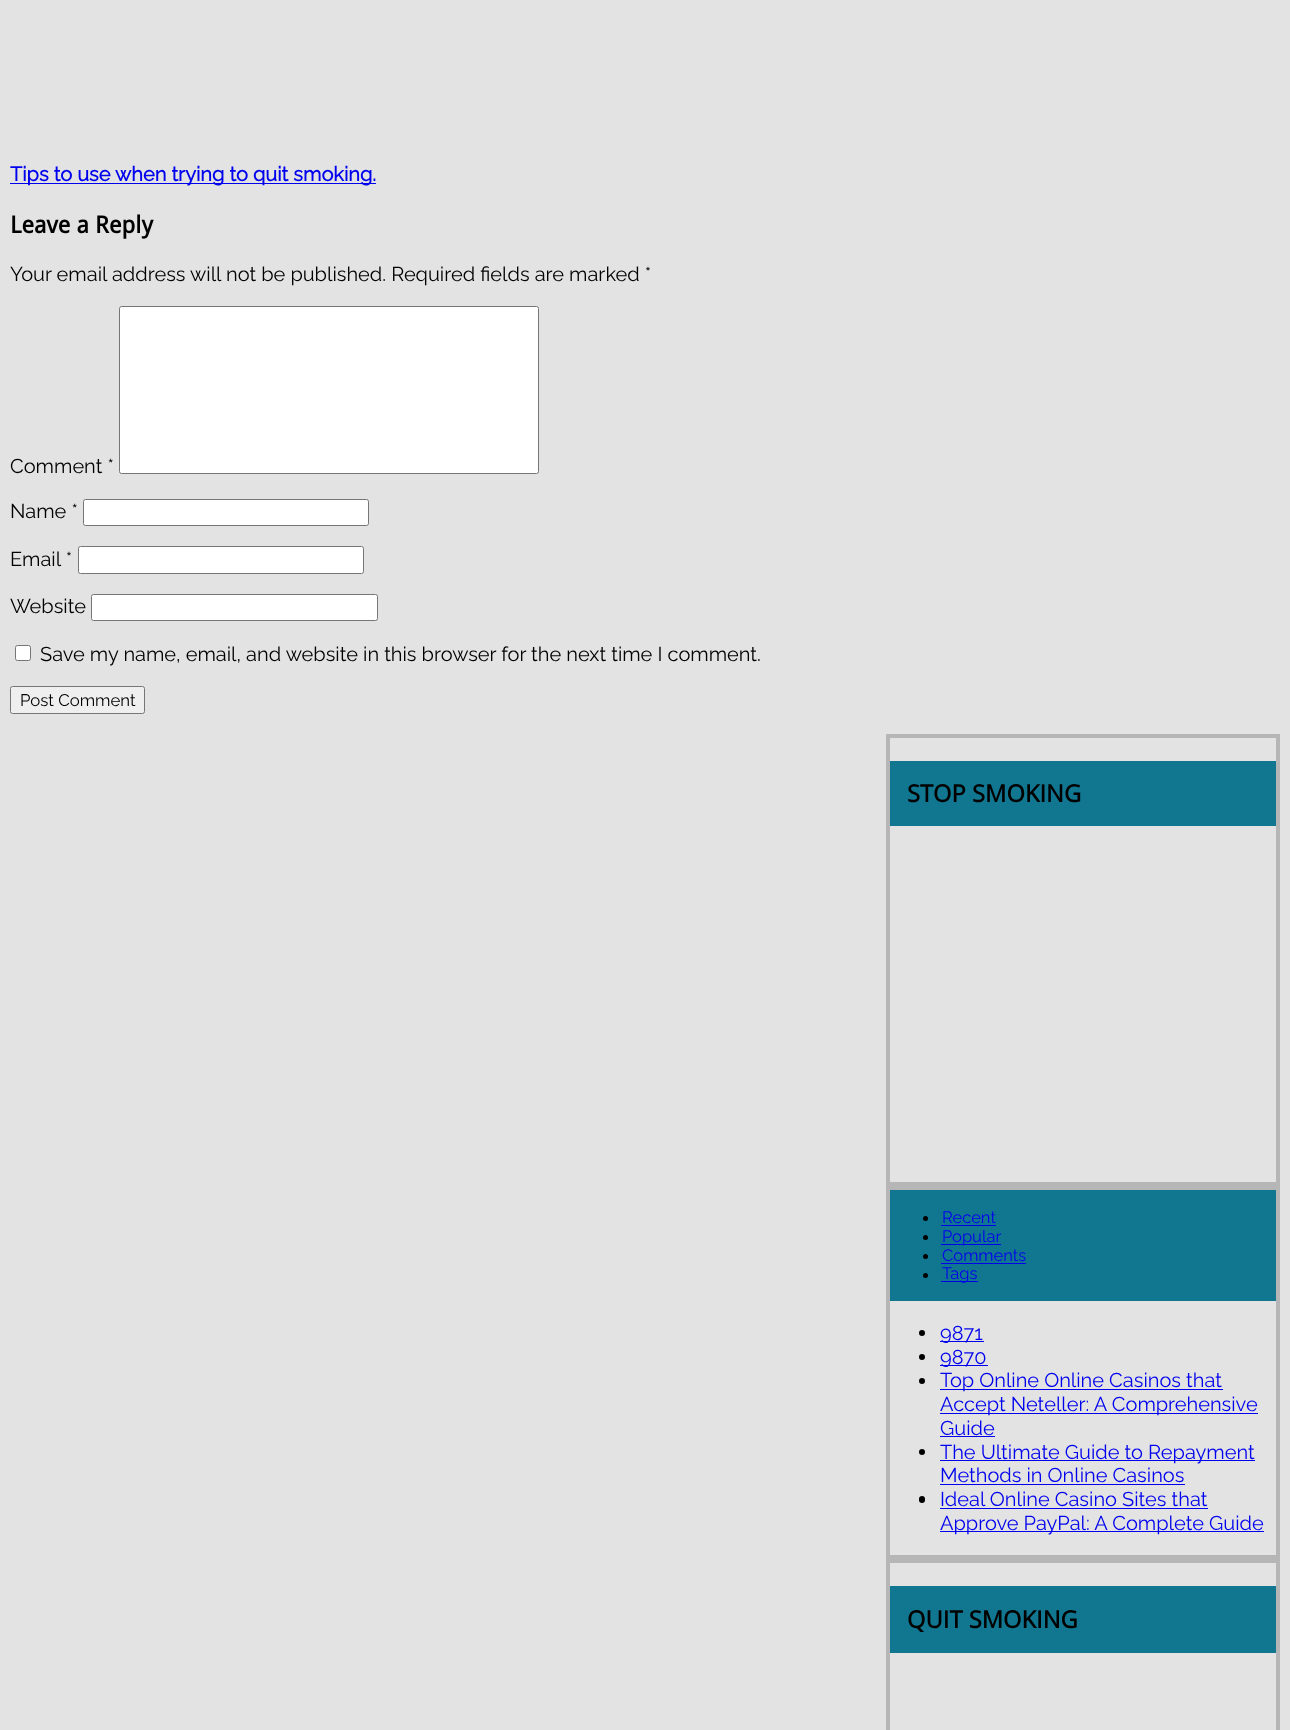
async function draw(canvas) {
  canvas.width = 1290;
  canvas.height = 1730;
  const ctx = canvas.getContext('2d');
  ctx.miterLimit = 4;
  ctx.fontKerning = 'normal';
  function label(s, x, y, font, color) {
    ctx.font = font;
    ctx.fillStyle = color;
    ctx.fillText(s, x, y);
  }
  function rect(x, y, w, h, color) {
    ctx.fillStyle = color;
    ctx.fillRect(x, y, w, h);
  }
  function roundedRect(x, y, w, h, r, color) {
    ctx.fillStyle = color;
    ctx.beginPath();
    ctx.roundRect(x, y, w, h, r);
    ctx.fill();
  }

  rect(0, 0, 1290, 1730, '#e3e3e3');
  rect(10, 183, 366, 1, '#00e');
  label('Tips to use when trying to quit smoking.', 10, 181, 'bold 20px Raleway', '#00e');
  label('Leave a Reply', 10, 233, 'bold 23.5px Droid Sans', '#000');
  label('Your email address will not be published. Required fields are marked *', 10, 281, '100 20px Raleway', '#000');
  label('Comment *', 10, 473, '100 20px Raleway', '#000');
  ctx.fillStyle = '#fff';
  ctx.beginPath();
  ctx.roundRect(119.5, 306.5, 419, 167, 2);
  ctx.fill();
  ctx.strokeStyle = '#767676';
  ctx.stroke();
  label('Name *', 10, 518, '100 20px Raleway', '#000');
  ctx.fillStyle = '#fff';
  ctx.beginPath();
  ctx.roundRect(83.5, 499.5, 285, 26, 2);
  ctx.fill();
  ctx.stroke();
  label('Email *', 10, 566, '100 20px Raleway', '#000');
  ctx.fillStyle = '#fff';
  ctx.beginPath();
  ctx.roundRect(78.5, 546.5, 285, 27, 2);
  ctx.fill();
  ctx.stroke();
  label('Website', 10, 613, '100 20px Raleway', '#000');
  ctx.fillStyle = '#fff';
  ctx.beginPath();
  ctx.roundRect(91.5, 594.5, 286, 26, 2);
  ctx.fill();
  ctx.stroke();
  ctx.beginPath();
  ctx.roundRect(15.5, 645.5, 15, 15, 2);
  ctx.fill();
  ctx.stroke();
  label('Save my name, email, and website in this browser for the next time I comment.', 40, 661, '100 20px Raleway', '#000');
  ctx.fillStyle = '#efefef';
  ctx.beginPath();
  ctx.roundRect(10.5, 686.5, 134, 27, 2);
  ctx.fill();
  ctx.stroke();
  label('Post Comment', 20, 706, '100 16.75px Raleway', '#000');
  ctx.strokeStyle = '#b6b6b6';
  ctx.lineWidth = 4;
  ctx.strokeRect(888, 736, 390, 448);
  rect(890, 761, 386, 65, '#117791');
  label('STOP SMOKING', 907, 802, 'bold 23.75px Open Sans', '#000');
  ctx.strokeRect(888, 1188, 390, 369);
  rect(890, 1190, 386, 111, '#117791');
  ctx.fillStyle = '#000';
  ctx.beginPath();
  ctx.arc(925.5, 1218.5, 2.5, 0, 2 * Math.PI);
  ctx.fill();
  label('Recent', 942, 1223, '100 16.5px Raleway', '#00e');
  rect(941, 1225, 55, 1, '#00e');
  ctx.fillStyle = '#000';
  ctx.beginPath();
  ctx.arc(925.5, 1237.5, 2.5, 0, 2 * Math.PI);
  ctx.fill();
  rect(941, 1244, 60, 1, '#00e');
  label('Popular', 942, 1242, '100 16.5px Raleway', '#00e');
  ctx.fillStyle = '#000';
  ctx.beginPath();
  ctx.arc(925.5, 1256.5, 2.5, 0, 2 * Math.PI);
  ctx.fill();
  label('Comments', 942, 1261, '100 16.5px Raleway', '#00e');
  rect(941, 1263, 85, 1, '#00e');
  ctx.fillStyle = '#000';
  ctx.beginPath();
  ctx.arc(925.5, 1275.5, 2.5, 0, 2 * Math.PI);
  ctx.fill();
  rect(941, 1281, 37, 1, '#00e');
  label('Tags', 942, 1279, '100 16.5px Raleway', '#00e');
  ctx.fillStyle = '#000';
  ctx.beginPath();
  ctx.arc(922, 1333, 3, 0, 2 * Math.PI);
  ctx.fill();
  rect(940, 1341, 44, 1, '#00e');
  label('9871', 940, 1340, '100 20px Raleway', '#00e');
  ctx.fillStyle = '#000';
  ctx.beginPath();
  ctx.arc(922, 1357, 3, 0, 2 * Math.PI);
  ctx.fill();
  rect(940, 1365, 48, 1, '#00e');
  label('9870', 940, 1364, '100 20px Raleway', '#00e');
  ctx.fillStyle = '#000';
  ctx.beginPath();
  ctx.arc(922, 1381, 3, 0, 2 * Math.PI);
  ctx.fill();
  rect(940, 1389, 283, 1, '#00e');
  label('Top Online Online Casinos that', 940, 1387, '100 20px Raleway', '#00e');
  rect(940, 1413, 318, 1, '#00e');
  label('Accept Neteller: A Comprehensive', 940, 1411, '100 20px Raleway', '#00e');
  label('Guide', 940, 1435, '100 20px Raleway', '#00e');
  rect(940, 1436, 55, 1, '#00e');
  ctx.fillStyle = '#000';
  ctx.beginPath();
  ctx.arc(922, 1452, 3, 0, 2 * Math.PI);
  ctx.fill();
  rect(940, 1460, 315, 1, '#00e');
  label('The Ultimate Guide to Repayment', 940, 1459, '100 20px Raleway', '#00e');
  label('Methods in Online Casinos', 940, 1482, '100 20px Raleway', '#00e');
  rect(940, 1484, 245, 1, '#00e');
  roundedRect(919, 1496, 6, 7, 3, '#000');
  label('Ideal Online Casino Sites that', 940, 1506, '100 20px Raleway', '#00e');
  rect(940, 1508, 268, 1, '#00e');
  rect(940, 1531, 324, 1, '#00e');
  label('Approve PayPal: A Complete Guide', 940, 1530, '100 20px Raleway', '#00e');
  ctx.strokeRect(888, 1561, 390, 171);
  rect(890, 1586, 386, 67, '#117791');
  label('QUIT SMOKING', 907, 1628, 'bold 23.75px Open Sans', '#000');
}

draw(document.querySelector('canvas'));
